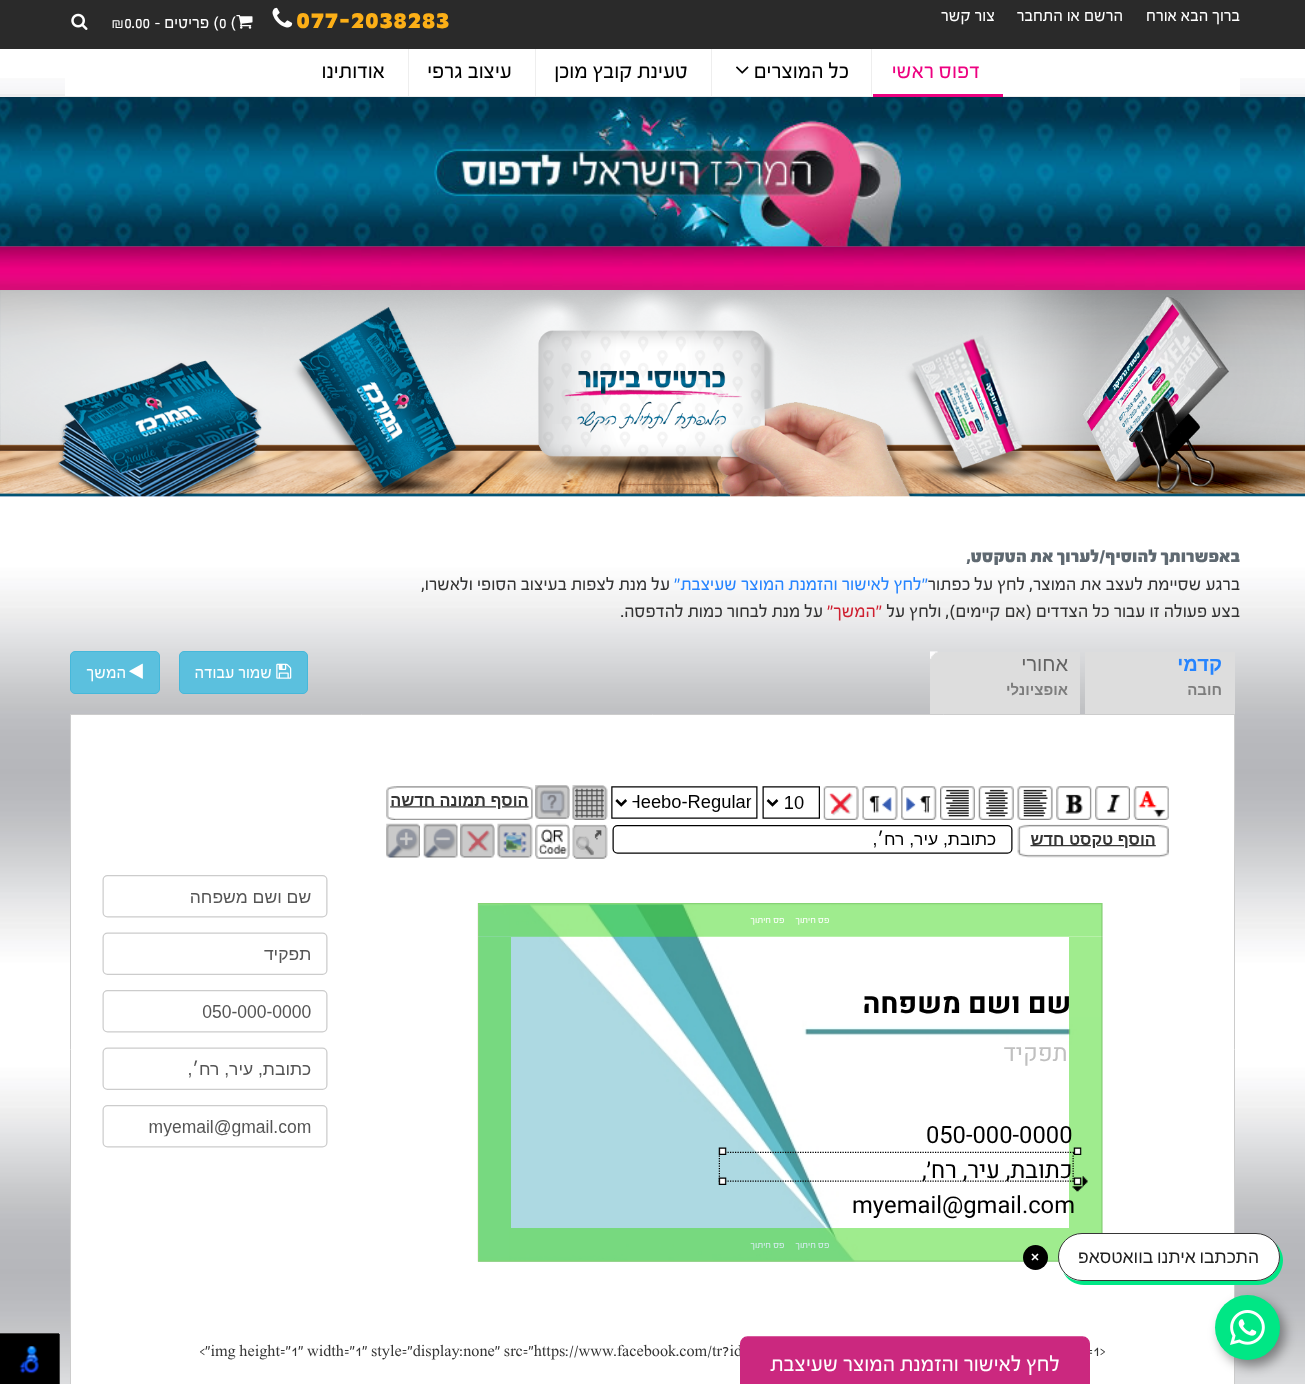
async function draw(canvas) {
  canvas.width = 1305;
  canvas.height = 1384;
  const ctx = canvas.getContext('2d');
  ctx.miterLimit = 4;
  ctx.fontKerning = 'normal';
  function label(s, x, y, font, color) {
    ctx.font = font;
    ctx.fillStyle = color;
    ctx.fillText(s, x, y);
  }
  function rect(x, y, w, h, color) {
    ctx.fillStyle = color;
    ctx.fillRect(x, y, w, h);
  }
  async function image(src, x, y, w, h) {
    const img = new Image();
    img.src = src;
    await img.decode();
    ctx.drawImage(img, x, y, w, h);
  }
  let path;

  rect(0, 0, 1305, 1384, '#fff');
  await image('assets/img1.png', 0, 78, 1305, 1306);
  rect(0, 94, 1305, 3, '#eee');
  rect(0, 0, 1305, 49, '#2a2a2a');
  ctx.direction = 'rtl';
  label('ברוך הבא אורח', 1240, 21, '17.5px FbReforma', '#fff');
  label('הרשם או התחבר', 1123, 21, '17.5px FbReforma', '#fff');
  label('צור קשר', 995, 21, '17.5px FbReforma', '#fff');
  ctx.direction = 'ltr';
  label('077-2038283', 296, 28, 'bold 28.5px FbReforma', '#fcaf17');
  await image('assets/img2.png', 272, 7, 21, 21);
  await image('assets/img3.png', 236, 15, 17, 14);
  label('0 (', 219, 28, '17.5px FbReforma', '#fff');
  ctx.direction = 'rtl';
  label(') פריטים -', 219, 28, '17.5px FbReforma', '#fff');
  ctx.direction = 'ltr';
  label('₪0.00', 111, 28, '17.5px FbReforma', '#fff');
  await image('assets/img4.png', 71, 13, 17, 17);
  rect(65, 78, 1175, 18, '#fff');
  rect(871, 49, 1, 47, '#eee');
  rect(873, 94, 130, 3, '#ed0180');
  ctx.direction = 'rtl';
  label('דפוס ראשי', 980, 78, '22.5px FbReforma', '#ed0180');
  rect(711, 49, 1, 47, '#eee');
  label('כל המוצרים', 849, 78, '22.5px FbReforma', '#000');
  await image('assets/img5.png', 736, 66, 13, 8);
  rect(535, 49, 1, 47, '#eee');
  label('טעינת קובץ מוכן', 688, 78, '22.5px FbReforma', '#000');
  rect(408, 49, 1, 47, '#eee');
  label('עיצוב גרפי', 512, 78, '22.5px FbReforma', '#000');
  label('אודותינו', 385, 78, '22.5px FbReforma', '#000');
  await image('assets/img7.png', 0, 246, 1305, 44);
  await image('assets/img6.png', 0, 97, 1305, 150);
  await image('assets/img8.png', 0, 496, 1305, 1);
  await image('assets/img9.png', 0, 290, 1305, 207);
  label('באפשרותך להוסיף/לערוך את הטקסט,', 1240, 562, 'bold 18.75px FbReforma', '#5f6971');
  label('ברגע שסיימת לעצב את המוצר, לחץ על כפתור', 1240, 590, '18.75px FbReforma', '#333');
  label('"לחץ לאישור והזמנת המוצר שעיצבת"', 928, 590, '18.75px FbReforma', '#2584ff');
  label('על מנת לצפות בעיצוב הסופי ולאשרו,', 670, 590, '18.75px FbReforma', '#333');
  label('בצע פעולה זו עבור כל הצדדים (אם קיימים), ולחץ על', 1240, 617, '18.75px FbReforma', '#333');
  label('"המשך"', 882, 617, '18.75px FbReforma', '#cf2030');
  label('על מנת לבחור כמות להדפסה.', 823, 617, '18.75px FbReforma', '#333');
  rect(1085, 652, 150, 62, '#ddd');
  rect(930, 652, 150, 62, '#ddd');
  await image('assets/img10.png', 930, 651, 8, 8);
  label('קדמי', 1222, 671, 'bold 20px Liberation Sans', '#2584ff');
  label('חובה', 1222, 695, 'bold 15px Liberation Sans', '#7d7d7d');
  label('אחורי', 1068, 671, '20px Liberation Sans', '#636363');
  label('אופציונלי', 1068, 695, 'bold 15px Liberation Sans', '#7d7d7d');
  ctx.fillStyle = '#5bc0de';
  ctx.beginPath();
  ctx.roundRect(179.5, 651.5, 128, 42, 4.5);
  ctx.fill();
  ctx.strokeStyle = '#46b8da';
  ctx.stroke();
  await image('assets/img11.png', 276, 663, 16, 16);
  label('שמור עבודה', 272, 678, '17.5px FbReforma', '#fff');
  ctx.fillStyle = '#5bc0de';
  ctx.beginPath();
  ctx.roundRect(70.5, 651.5, 89, 42, 4.5);
  ctx.fill();
  ctx.stroke();
  await image('assets/img12.png', 129, 663, 14, 16);
  label('המשך', 126, 678, '17.5px FbReforma', '#fff');
  ctx.beginPath();
  ctx.rect(70.5, 714.5, 1164, 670);
  ctx.fill();
  ctx.strokeStyle = '#ccc';
  ctx.stroke();
  await image('assets/img13.png', 102, 785, 1067, 599);
  ctx.fillStyle = '#00000066';
  ctx.filter = 'blur(6px)';
  ctx.beginPath();
  ctx.roundRect(1220, 1301, 65, 65, 32.5);
  ctx.fill();
  ctx.filter = 'none';
  ctx.fillStyle = '#00e785';
  path = new Path2D('M1063 1272C1067 1280 1075 1285 1084 1285H1258C1272 1285 1283 1274 1283 1260C1283 1254 1280 1248 1276 1243C1278 1247 1280 1252 1280 1257C1280 1270 1269 1281 1256 1281H1082C1074 1281 1068 1278 1063 1272Z');
  ctx.fill(path);
  ctx.fillStyle = '#fff';
  ctx.beginPath();
  ctx.roundRect(1058.5, 1233.5, 221, 47, 23.5);
  ctx.fill();
  ctx.strokeStyle = '#363636';
  ctx.stroke();
  ctx.wordSpacing = '-1px';
  label('התכתבו איתנו בוואטסאפ', 1259, 1263, '17.5px Liberation Sans', '#202020');
  ctx.fillStyle = '#000';
  ctx.beginPath();
  ctx.arc(1035.5, 1257.5, 12.5, 0, 2 * Math.PI);
  ctx.fill();
  path = new Path2D('M1032 1254L1038 1260M1032 1260L1038 1254');
  ctx.strokeStyle = '#fff';
  ctx.lineWidth = 1.7;
  ctx.stroke(path);
  ctx.fillStyle = '#00e785';
  ctx.beginPath();
  ctx.arc(1247.5, 1327.5, 32.5, 0, 2 * Math.PI);
  ctx.fill();
  await image('assets/img14.png', 1230, 1310, 35, 35);
  ctx.fillStyle = '#404040';
  path = new Path2D('M-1 1333V1384H0V1334H59V1333Z');
  ctx.fill(path);
  rect(0, 1334, 59, 50, '#000');
  ctx.save();
  ctx.beginPath();
  ctx.rect(0, 1334, 60, 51);
  ctx.clip();
  ctx.fillStyle = '#404040';
  path = new Path2D('M-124 1210H184V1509H-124ZM-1 1332H59V1384H-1Z');
  ctx.fill(path, 'evenodd');
  ctx.restore();
  await image('assets/img15.png', 19, 1346, 20, 28);
}

draw(document.querySelector('canvas'));
